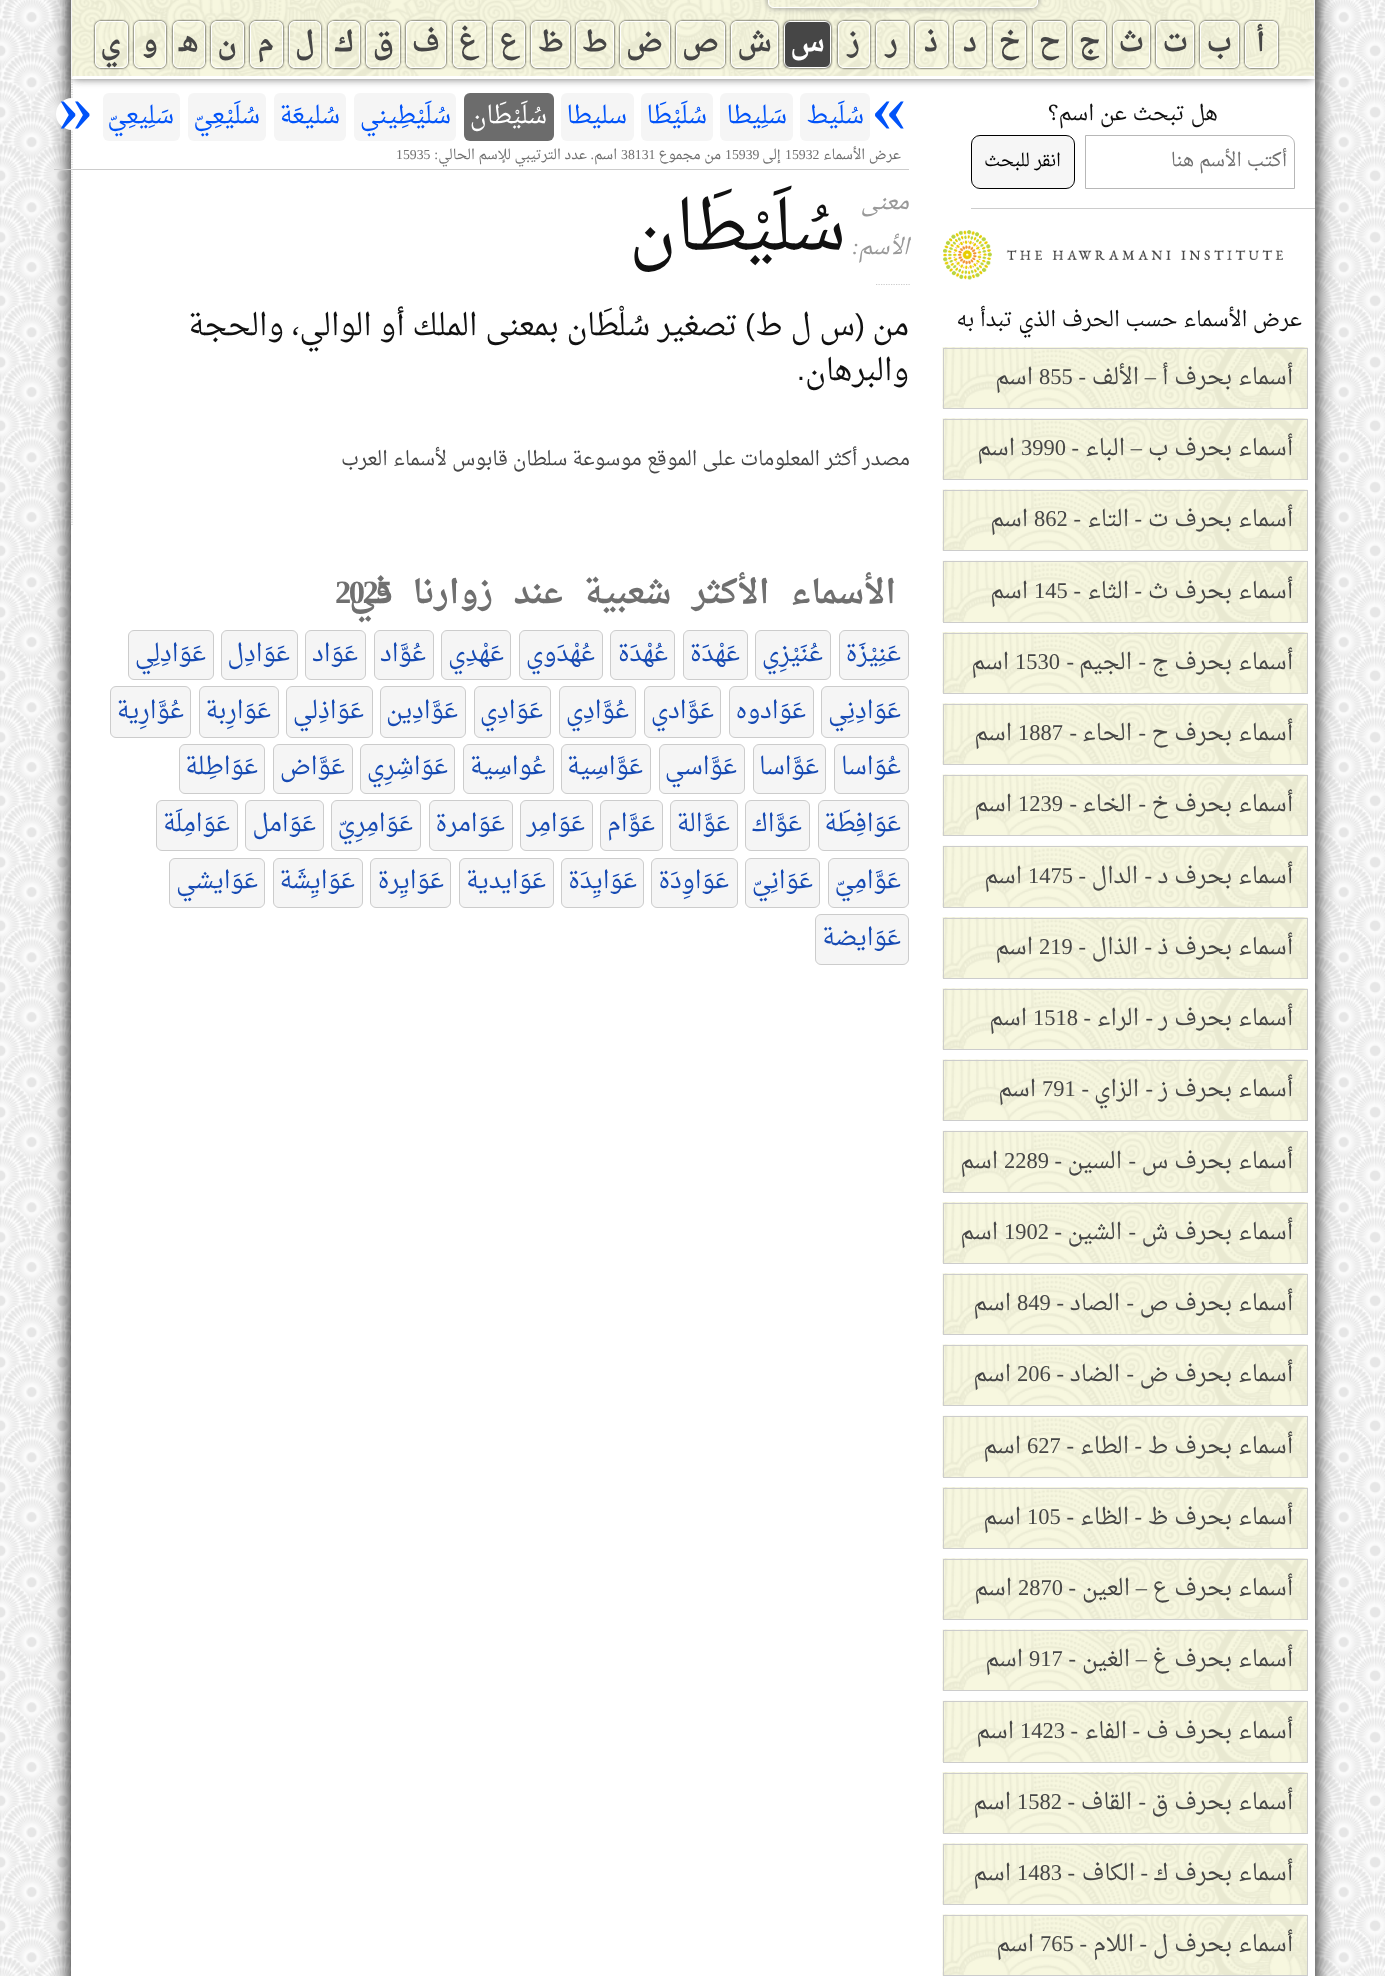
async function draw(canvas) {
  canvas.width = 1385;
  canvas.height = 1976;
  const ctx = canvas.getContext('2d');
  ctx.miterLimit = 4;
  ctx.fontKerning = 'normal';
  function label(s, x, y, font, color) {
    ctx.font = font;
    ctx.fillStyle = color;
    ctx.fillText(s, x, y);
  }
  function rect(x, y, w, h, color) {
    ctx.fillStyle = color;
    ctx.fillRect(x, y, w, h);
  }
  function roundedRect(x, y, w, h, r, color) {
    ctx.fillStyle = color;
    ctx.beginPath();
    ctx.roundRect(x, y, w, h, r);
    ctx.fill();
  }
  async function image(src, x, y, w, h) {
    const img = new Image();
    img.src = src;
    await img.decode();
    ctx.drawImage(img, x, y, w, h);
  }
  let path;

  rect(0, 0, 1385, 1976, '#fff');
  await image('assets/img1.png', 0, 0, 1385, 1976);
  ctx.fillStyle = '#000';
  ctx.filter = 'blur(10px)';
  ctx.beginPath();
  ctx.roundRect(71, -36, 1244, 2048, 6);
  ctx.fill();
  ctx.filter = 'none';
  rect(71, 77, 1244, 1899, '#fff');
  ctx.fillStyle = '#6c6c6c';
  ctx.filter = 'blur(4px)';
  ctx.beginPath();
  ctx.roundRect(71, -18, 1244, 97, 6);
  ctx.fill();
  ctx.filter = 'none';
  await image('assets/img2.png', 71, 0, 1244, 78);
  ctx.fillStyle = '#f6f6f6';
  path = new Path2D('M1315 79V-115L1313-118L1314-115V76Z');
  ctx.fill(path);
  ctx.fillStyle = '#fff';
  path = new Path2D('M1315 79L1314 76H73L71 79Z');
  ctx.fill(path);
  ctx.fillStyle = '#f6f6f6';
  path = new Path2D('M71 79V-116L73-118H74L72-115V76H73Z');
  ctx.fill(path);
  ctx.save();
  path = new Path2D('M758 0H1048V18H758ZM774-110H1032C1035.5-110 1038-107.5 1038-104V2C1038 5.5 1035.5 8 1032 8H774C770.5 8 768 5.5 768 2V-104C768-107.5 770.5-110 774-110Z');
  ctx.clip(path, 'evenodd');
  ctx.fillStyle = '#8a8a8a';
  ctx.filter = 'blur(3px)';
  ctx.beginPath();
  ctx.roundRect(768, -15, 270, 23, 6);
  ctx.fill();
  ctx.filter = 'none';
  ctx.restore();
  ctx.beginPath();
  ctx.roundRect(768.5, -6.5, 269, 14, 5.5);
  ctx.strokeStyle = '#fff';
  ctx.stroke();
  ctx.save();
  path = new Path2D('M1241 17H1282V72H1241ZM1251 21H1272C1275.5 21 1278 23.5 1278 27V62C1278 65.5 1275.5 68 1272 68H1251C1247.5 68 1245 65.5 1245 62V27C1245 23.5 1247.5 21 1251 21Z');
  ctx.clip(path, 'evenodd');
  ctx.fillStyle = '#000';
  ctx.filter = 'blur(1px)';
  ctx.beginPath();
  ctx.roundRect(1245, 21, 33, 47, 6);
  ctx.fill();
  ctx.filter = 'none';
  ctx.restore();
  ctx.beginPath();
  ctx.roundRect(1245.5, 21.5, 32, 46, 5.5);
  ctx.stroke();
  ctx.direction = 'rtl';
  label('أ', 1265, 51, 'bold 28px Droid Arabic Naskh', '#464646');
  ctx.save();
  path = new Path2D('M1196 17H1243V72H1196ZM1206 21H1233C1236.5 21 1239 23.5 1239 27V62C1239 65.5 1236.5 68 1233 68H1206C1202.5 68 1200 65.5 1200 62V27C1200 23.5 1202.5 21 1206 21Z');
  ctx.clip(path, 'evenodd');
  ctx.fillStyle = '#000';
  ctx.filter = 'blur(1px)';
  ctx.beginPath();
  ctx.roundRect(1200, 21, 39, 47, 6);
  ctx.fill();
  ctx.filter = 'none';
  ctx.restore();
  ctx.beginPath();
  ctx.roundRect(1200.5, 21.5, 38, 46, 5.5);
  ctx.stroke();
  label('ب', 1232, 51, 'bold 28px Droid Arabic Naskh', '#464646');
  ctx.save();
  path = new Path2D('M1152 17H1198V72H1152ZM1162 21H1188C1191.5 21 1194 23.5 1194 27V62C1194 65.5 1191.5 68 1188 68H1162C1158.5 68 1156 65.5 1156 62V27C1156 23.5 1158.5 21 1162 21Z');
  ctx.clip(path, 'evenodd');
  ctx.fillStyle = '#000';
  ctx.filter = 'blur(1px)';
  ctx.beginPath();
  ctx.roundRect(1156, 21, 38, 47, 6);
  ctx.fill();
  ctx.filter = 'none';
  ctx.restore();
  ctx.beginPath();
  ctx.roundRect(1156.5, 21.5, 37, 46, 5.5);
  ctx.stroke();
  label('ت', 1188, 51, 'bold 28px Droid Arabic Naskh', '#464646');
  ctx.save();
  path = new Path2D('M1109 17H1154V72H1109ZM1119 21H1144C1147.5 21 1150 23.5 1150 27V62C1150 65.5 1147.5 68 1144 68H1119C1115.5 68 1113 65.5 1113 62V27C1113 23.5 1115.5 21 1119 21Z');
  ctx.clip(path, 'evenodd');
  ctx.fillStyle = '#000';
  ctx.filter = 'blur(1px)';
  ctx.beginPath();
  ctx.roundRect(1113, 21, 37, 47, 6);
  ctx.fill();
  ctx.filter = 'none';
  ctx.restore();
  ctx.beginPath();
  ctx.roundRect(1113.5, 21.5, 36, 46, 5.5);
  ctx.stroke();
  label('ث', 1144, 51, 'bold 28px Droid Arabic Naskh', '#464646');
  ctx.save();
  path = new Path2D('M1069 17H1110V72H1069ZM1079 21H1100C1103.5 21 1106 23.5 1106 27V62C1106 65.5 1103.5 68 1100 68H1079C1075.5 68 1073 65.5 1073 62V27C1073 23.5 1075.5 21 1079 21Z');
  ctx.clip(path, 'evenodd');
  ctx.fillStyle = '#000';
  ctx.filter = 'blur(1px)';
  ctx.beginPath();
  ctx.roundRect(1073, 21, 33, 47, 6);
  ctx.fill();
  ctx.filter = 'none';
  ctx.restore();
  ctx.beginPath();
  ctx.roundRect(1073.5, 21.5, 32, 46, 5.5);
  ctx.stroke();
  label('ج', 1100, 51, 'bold 28px Droid Arabic Naskh', '#464646');
  ctx.save();
  path = new Path2D('M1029 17H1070V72H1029ZM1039 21H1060C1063.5 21 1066 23.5 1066 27V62C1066 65.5 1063.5 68 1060 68H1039C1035.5 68 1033 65.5 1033 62V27C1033 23.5 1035.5 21 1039 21Z');
  ctx.clip(path, 'evenodd');
  ctx.fillStyle = '#000';
  ctx.filter = 'blur(1px)';
  ctx.beginPath();
  ctx.roundRect(1033, 21, 33, 47, 6);
  ctx.fill();
  ctx.filter = 'none';
  ctx.restore();
  ctx.beginPath();
  ctx.roundRect(1033.5, 21.5, 32, 46, 5.5);
  ctx.stroke();
  label('ح', 1060, 51, 'bold 28px Droid Arabic Naskh', '#464646');
  ctx.save();
  path = new Path2D('M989 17H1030V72H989ZM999 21H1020C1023.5 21 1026 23.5 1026 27V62C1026 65.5 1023.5 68 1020 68H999C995.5 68 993 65.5 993 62V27C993 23.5 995.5 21 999 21Z');
  ctx.clip(path, 'evenodd');
  ctx.fillStyle = '#000';
  ctx.filter = 'blur(1px)';
  ctx.beginPath();
  ctx.roundRect(993, 21, 33, 47, 6);
  ctx.fill();
  ctx.filter = 'none';
  ctx.restore();
  ctx.beginPath();
  ctx.roundRect(993.5, 21.5, 32, 46, 5.5);
  ctx.stroke();
  label('خ', 1020, 51, 'bold 28px Droid Arabic Naskh', '#464646');
  ctx.save();
  path = new Path2D('M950 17H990V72H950ZM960 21H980C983.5 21 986 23.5 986 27V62C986 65.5 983.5 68 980 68H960C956.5 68 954 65.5 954 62V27C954 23.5 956.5 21 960 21Z');
  ctx.clip(path, 'evenodd');
  ctx.fillStyle = '#000';
  ctx.filter = 'blur(1px)';
  ctx.beginPath();
  ctx.roundRect(954, 21, 32, 47, 6);
  ctx.fill();
  ctx.filter = 'none';
  ctx.restore();
  ctx.beginPath();
  ctx.roundRect(954.5, 21.5, 31, 46, 5.5);
  ctx.stroke();
  label('د', 977, 51, 'bold 28px Droid Arabic Naskh', '#464646');
  ctx.save();
  path = new Path2D('M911 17H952V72H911ZM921 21H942C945.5 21 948 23.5 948 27V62C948 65.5 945.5 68 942 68H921C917.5 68 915 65.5 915 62V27C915 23.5 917.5 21 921 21Z');
  ctx.clip(path, 'evenodd');
  ctx.fillStyle = '#000';
  ctx.filter = 'blur(1px)';
  ctx.beginPath();
  ctx.roundRect(915, 21, 33, 47, 6);
  ctx.fill();
  ctx.filter = 'none';
  ctx.restore();
  ctx.beginPath();
  ctx.roundRect(915.5, 21.5, 32, 46, 5.5);
  ctx.stroke();
  label('ذ', 938, 51, 'bold 28px Droid Arabic Naskh', '#464646');
  ctx.save();
  path = new Path2D('M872 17H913V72H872ZM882 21H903C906.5 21 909 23.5 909 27V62C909 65.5 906.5 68 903 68H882C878.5 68 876 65.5 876 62V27C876 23.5 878.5 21 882 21Z');
  ctx.clip(path, 'evenodd');
  ctx.fillStyle = '#000';
  ctx.filter = 'blur(1px)';
  ctx.beginPath();
  ctx.roundRect(876, 21, 33, 47, 6);
  ctx.fill();
  ctx.filter = 'none';
  ctx.restore();
  ctx.beginPath();
  ctx.roundRect(876.5, 21.5, 32, 46, 5.5);
  ctx.stroke();
  label('ر', 898, 51, 'bold 28px Droid Arabic Naskh', '#464646');
  ctx.save();
  path = new Path2D('M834 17H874V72H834ZM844 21H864C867.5 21 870 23.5 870 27V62C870 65.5 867.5 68 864 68H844C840.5 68 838 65.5 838 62V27C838 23.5 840.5 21 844 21Z');
  ctx.clip(path, 'evenodd');
  ctx.fillStyle = '#000';
  ctx.filter = 'blur(1px)';
  ctx.beginPath();
  ctx.roundRect(838, 21, 32, 47, 6);
  ctx.fill();
  ctx.filter = 'none';
  ctx.restore();
  ctx.beginPath();
  ctx.roundRect(838.5, 21.5, 31, 46, 5.5);
  ctx.stroke();
  label('ز', 860, 51, 'bold 28px Droid Arabic Naskh', '#464646');
  ctx.fillStyle = '#000';
  ctx.filter = 'blur(1px)';
  ctx.beginPath();
  ctx.roundRect(784, 21, 47, 47, 6);
  ctx.fill();
  ctx.filter = 'none';
  ctx.fillStyle = '#464646';
  ctx.beginPath();
  ctx.roundRect(784.5, 21.5, 46, 46, 5.5);
  ctx.fill();
  ctx.stroke();
  label('س', 825, 51, 'bold 28px Droid Arabic Naskh', '#fff');
  ctx.save();
  path = new Path2D('M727 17H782V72H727ZM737 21H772C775.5 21 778 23.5 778 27V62C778 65.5 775.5 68 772 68H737C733.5 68 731 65.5 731 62V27C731 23.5 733.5 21 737 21Z');
  ctx.clip(path, 'evenodd');
  ctx.fillStyle = '#000';
  ctx.filter = 'blur(1px)';
  ctx.beginPath();
  ctx.roundRect(731, 21, 47, 47, 6);
  ctx.fill();
  ctx.filter = 'none';
  ctx.restore();
  ctx.beginPath();
  ctx.roundRect(731.5, 21.5, 46, 46, 5.5);
  ctx.stroke();
  label('ش', 772, 51, 'bold 28px Droid Arabic Naskh', '#464646');
  ctx.save();
  path = new Path2D('M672 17H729V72H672ZM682 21H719C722.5 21 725 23.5 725 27V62C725 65.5 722.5 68 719 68H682C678.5 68 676 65.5 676 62V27C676 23.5 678.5 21 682 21Z');
  ctx.clip(path, 'evenodd');
  ctx.fillStyle = '#000';
  ctx.filter = 'blur(1px)';
  ctx.beginPath();
  ctx.roundRect(676, 21, 49, 47, 6);
  ctx.fill();
  ctx.filter = 'none';
  ctx.restore();
  ctx.beginPath();
  ctx.roundRect(676.5, 21.5, 48, 46, 5.5);
  ctx.stroke();
  label('ص', 719, 51, 'bold 28px Droid Arabic Naskh', '#464646');
  ctx.save();
  path = new Path2D('M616 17H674V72H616ZM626 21H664C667.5 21 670 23.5 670 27V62C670 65.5 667.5 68 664 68H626C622.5 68 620 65.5 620 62V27C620 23.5 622.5 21 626 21Z');
  ctx.clip(path, 'evenodd');
  ctx.fillStyle = '#000';
  ctx.filter = 'blur(1px)';
  ctx.beginPath();
  ctx.roundRect(620, 21, 50, 47, 6);
  ctx.fill();
  ctx.filter = 'none';
  ctx.restore();
  ctx.beginPath();
  ctx.roundRect(620.5, 21.5, 49, 46, 5.5);
  ctx.stroke();
  label('ض', 663, 51, 'bold 28px Droid Arabic Naskh', '#464646');
  ctx.save();
  path = new Path2D('M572 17H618V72H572ZM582 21H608C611.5 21 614 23.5 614 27V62C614 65.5 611.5 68 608 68H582C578.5 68 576 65.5 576 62V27C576 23.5 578.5 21 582 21Z');
  ctx.clip(path, 'evenodd');
  ctx.fillStyle = '#000';
  ctx.filter = 'blur(1px)';
  ctx.beginPath();
  ctx.roundRect(576, 21, 38, 47, 6);
  ctx.fill();
  ctx.filter = 'none';
  ctx.restore();
  ctx.beginPath();
  ctx.roundRect(576.5, 21.5, 37, 46, 5.5);
  ctx.stroke();
  label('ط', 608, 51, 'bold 28px Droid Arabic Naskh', '#464646');
  ctx.save();
  path = new Path2D('M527 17H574V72H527ZM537 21H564C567.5 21 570 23.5 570 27V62C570 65.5 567.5 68 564 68H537C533.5 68 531 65.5 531 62V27C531 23.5 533.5 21 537 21Z');
  ctx.clip(path, 'evenodd');
  ctx.fillStyle = '#000';
  ctx.filter = 'blur(1px)';
  ctx.beginPath();
  ctx.roundRect(531, 21, 39, 47, 6);
  ctx.fill();
  ctx.filter = 'none';
  ctx.restore();
  ctx.beginPath();
  ctx.roundRect(531.5, 21.5, 38, 46, 5.5);
  ctx.stroke();
  label('ظ', 564, 51, 'bold 28px Droid Arabic Naskh', '#464646');
  ctx.save();
  path = new Path2D('M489 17H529V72H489ZM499 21H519C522.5 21 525 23.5 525 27V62C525 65.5 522.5 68 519 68H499C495.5 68 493 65.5 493 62V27C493 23.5 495.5 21 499 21Z');
  ctx.clip(path, 'evenodd');
  ctx.fillStyle = '#000';
  ctx.filter = 'blur(1px)';
  ctx.beginPath();
  ctx.roundRect(493, 21, 32, 47, 6);
  ctx.fill();
  ctx.filter = 'none';
  ctx.restore();
  ctx.beginPath();
  ctx.roundRect(493.5, 21.5, 31, 46, 5.5);
  ctx.stroke();
  label('ع', 519, 51, 'bold 28px Droid Arabic Naskh', '#464646');
  ctx.save();
  path = new Path2D('M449 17H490V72H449ZM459 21H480C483.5 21 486 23.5 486 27V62C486 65.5 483.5 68 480 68H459C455.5 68 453 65.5 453 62V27C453 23.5 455.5 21 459 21Z');
  ctx.clip(path, 'evenodd');
  ctx.fillStyle = '#000';
  ctx.filter = 'blur(1px)';
  ctx.beginPath();
  ctx.roundRect(453, 21, 33, 47, 6);
  ctx.fill();
  ctx.filter = 'none';
  ctx.restore();
  ctx.beginPath();
  ctx.roundRect(453.5, 21.5, 32, 46, 5.5);
  ctx.stroke();
  label('غ', 480, 51, 'bold 28px Droid Arabic Naskh', '#464646');
  ctx.save();
  path = new Path2D('M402 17H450V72H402ZM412 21H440C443.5 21 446 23.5 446 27V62C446 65.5 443.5 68 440 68H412C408.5 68 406 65.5 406 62V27C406 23.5 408.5 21 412 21Z');
  ctx.clip(path, 'evenodd');
  ctx.fillStyle = '#000';
  ctx.filter = 'blur(1px)';
  ctx.beginPath();
  ctx.roundRect(406, 21, 40, 47, 6);
  ctx.fill();
  ctx.filter = 'none';
  ctx.restore();
  ctx.beginPath();
  ctx.roundRect(406.5, 21.5, 39, 46, 5.5);
  ctx.stroke();
  label('ف', 440, 51, 'bold 28px Droid Arabic Naskh', '#464646');
  ctx.save();
  path = new Path2D('M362 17H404V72H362ZM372 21H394C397.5 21 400 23.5 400 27V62C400 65.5 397.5 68 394 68H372C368.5 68 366 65.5 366 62V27C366 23.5 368.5 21 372 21Z');
  ctx.clip(path, 'evenodd');
  ctx.fillStyle = '#000';
  ctx.filter = 'blur(1px)';
  ctx.beginPath();
  ctx.roundRect(366, 21, 34, 47, 6);
  ctx.fill();
  ctx.filter = 'none';
  ctx.restore();
  ctx.beginPath();
  ctx.roundRect(366.5, 21.5, 33, 46, 5.5);
  ctx.stroke();
  label('ق', 394, 51, 'bold 28px Droid Arabic Naskh', '#464646');
  ctx.save();
  path = new Path2D('M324 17H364V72H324ZM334 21H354C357.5 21 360 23.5 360 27V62C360 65.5 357.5 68 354 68H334C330.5 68 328 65.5 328 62V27C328 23.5 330.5 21 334 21Z');
  ctx.clip(path, 'evenodd');
  ctx.fillStyle = '#000';
  ctx.filter = 'blur(1px)';
  ctx.beginPath();
  ctx.roundRect(328, 21, 32, 47, 6);
  ctx.fill();
  ctx.filter = 'none';
  ctx.restore();
  ctx.beginPath();
  ctx.roundRect(328.5, 21.5, 31, 46, 5.5);
  ctx.stroke();
  label('ك', 354, 51, 'bold 28px Droid Arabic Naskh', '#464646');
  ctx.save();
  path = new Path2D('M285 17H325V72H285ZM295 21H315C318.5 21 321 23.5 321 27V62C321 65.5 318.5 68 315 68H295C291.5 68 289 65.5 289 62V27C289 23.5 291.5 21 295 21Z');
  ctx.clip(path, 'evenodd');
  ctx.fillStyle = '#000';
  ctx.filter = 'blur(1px)';
  ctx.beginPath();
  ctx.roundRect(289, 21, 32, 47, 6);
  ctx.fill();
  ctx.filter = 'none';
  ctx.restore();
  ctx.beginPath();
  ctx.roundRect(289.5, 21.5, 31, 46, 5.5);
  ctx.stroke();
  label('ل', 315, 51, 'bold 28px Droid Arabic Naskh', '#464646');
  ctx.save();
  path = new Path2D('M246 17H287V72H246ZM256 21H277C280.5 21 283 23.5 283 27V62C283 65.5 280.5 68 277 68H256C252.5 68 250 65.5 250 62V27C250 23.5 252.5 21 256 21Z');
  ctx.clip(path, 'evenodd');
  ctx.fillStyle = '#000';
  ctx.filter = 'blur(1px)';
  ctx.beginPath();
  ctx.roundRect(250, 21, 33, 47, 6);
  ctx.fill();
  ctx.filter = 'none';
  ctx.restore();
  ctx.beginPath();
  ctx.roundRect(250.5, 21.5, 32, 46, 5.5);
  ctx.stroke();
  label('م', 274, 51, 'bold 28px Droid Arabic Naskh', '#464646');
  ctx.save();
  path = new Path2D('M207 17H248V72H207ZM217 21H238C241.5 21 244 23.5 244 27V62C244 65.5 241.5 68 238 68H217C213.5 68 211 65.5 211 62V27C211 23.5 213.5 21 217 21Z');
  ctx.clip(path, 'evenodd');
  ctx.fillStyle = '#000';
  ctx.filter = 'blur(1px)';
  ctx.beginPath();
  ctx.roundRect(211, 21, 33, 47, 6);
  ctx.fill();
  ctx.filter = 'none';
  ctx.restore();
  ctx.beginPath();
  ctx.roundRect(211.5, 21.5, 32, 46, 5.5);
  ctx.stroke();
  label('ن', 237, 51, 'bold 28px Droid Arabic Naskh', '#464646');
  ctx.save();
  path = new Path2D('M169 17H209V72H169ZM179 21H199C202.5 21 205 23.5 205 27V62C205 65.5 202.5 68 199 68H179C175.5 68 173 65.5 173 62V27C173 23.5 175.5 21 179 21Z');
  ctx.clip(path, 'evenodd');
  ctx.fillStyle = '#000';
  ctx.filter = 'blur(1px)';
  ctx.beginPath();
  ctx.roundRect(173, 21, 32, 47, 6);
  ctx.fill();
  ctx.filter = 'none';
  ctx.restore();
  ctx.beginPath();
  ctx.roundRect(173.5, 21.5, 31, 46, 5.5);
  ctx.stroke();
  label('هـ', 199, 51, 'bold 28px Droid Arabic Naskh', '#464646');
  ctx.save();
  path = new Path2D('M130 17H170V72H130ZM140 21H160C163.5 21 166 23.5 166 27V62C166 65.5 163.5 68 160 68H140C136.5 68 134 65.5 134 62V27C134 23.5 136.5 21 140 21Z');
  ctx.clip(path, 'evenodd');
  ctx.fillStyle = '#000';
  ctx.filter = 'blur(1px)';
  ctx.beginPath();
  ctx.roundRect(134, 21, 32, 47, 6);
  ctx.fill();
  ctx.filter = 'none';
  ctx.restore();
  ctx.beginPath();
  ctx.roundRect(134.5, 21.5, 31, 46, 5.5);
  ctx.stroke();
  label('و', 158, 51, 'bold 28px Droid Arabic Naskh', '#464646');
  ctx.save();
  path = new Path2D('M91 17H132V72H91ZM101 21H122C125.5 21 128 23.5 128 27V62C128 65.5 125.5 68 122 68H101C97.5 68 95 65.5 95 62V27C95 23.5 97.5 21 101 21Z');
  ctx.clip(path, 'evenodd');
  ctx.fillStyle = '#000';
  ctx.filter = 'blur(1px)';
  ctx.beginPath();
  ctx.roundRect(95, 21, 33, 47, 6);
  ctx.fill();
  ctx.filter = 'none';
  ctx.restore();
  ctx.beginPath();
  ctx.roundRect(95.5, 21.5, 32, 46, 5.5);
  ctx.stroke();
  label('ي', 121, 51, 'bold 28px Droid Arabic Naskh', '#464646');
  rect(971, 208, 344, 1, '#ccc');
  label('هل تبحث عن اسم؟', 1218, 120, '21.25px Droid Arabic Naskh', '#111');
  ctx.beginPath();
  ctx.roundRect(1085.5, 135.5, 209, 53, [0, 8.5, 0, 0]);
  ctx.strokeStyle = '#b7b7b7';
  ctx.stroke();
  label('أكتب الأسم هنا', 1287, 166, '18.75px Droid Arabic Naskh', '#707070');
  ctx.fillStyle = '#f6f6f6';
  ctx.beginPath();
  ctx.roundRect(971.5, 135.5, 103, 53, 8.5);
  ctx.fill();
  ctx.strokeStyle = '#000';
  ctx.stroke();
  label('انقر للبحث', 1061, 166, '17.5px Droid Arabic Naskh', '#000');
  await image('assets/img3.png', 943, 230, 340, 50);
  label('عرض الأسماء حسب الحرف الذي تبدأ به', 1302, 326, '21px Droid Arabic Naskh', '#111');
  await image('assets/img4.png', 942, 347, 366, 62);
  ctx.strokeStyle = '#ccc';
  ctx.strokeRect(943.5, 348.5, 364, 60);
  label('أسماء بحرف أ', 1293, 384, '22.5px Droid Arabic Naskh', '#464646');
  label('–', 1156, 384, '22.5px Liberation Serif', '#464646');
  label('الألف', 1139, 384, '22.5px Droid Arabic Naskh', '#464646');
  label('-', 1086, 384, '22.5px Liberation Serif', '#464646');
  ctx.direction = 'ltr';
  label('855', 1039, 384, '22.5px Liberation Serif', '#464646');
  ctx.direction = 'rtl';
  label('اسم', 1033, 384, '22.5px Droid Arabic Naskh', '#464646');
  await image('assets/img5.png', 942, 418, 366, 62);
  ctx.strokeRect(943.5, 419.5, 364, 60);
  label('أسماء بحرف ب', 1293, 455, '22.5px Droid Arabic Naskh', '#464646');
  label('–', 1142, 455, '22.5px Liberation Serif', '#464646');
  label('الباء', 1125, 455, '22.5px Droid Arabic Naskh', '#464646');
  label('-', 1079, 455, '22.5px Liberation Serif', '#464646');
  ctx.direction = 'ltr';
  label('3990', 1021, 455, '22.5px Liberation Serif', '#464646');
  ctx.direction = 'rtl';
  label('اسم', 1015, 455, '22.5px Droid Arabic Naskh', '#464646');
  await image('assets/img6.png', 942, 489, 366, 62);
  ctx.strokeRect(943.5, 490.5, 364, 60);
  label('أسماء بحرف ت', 1293, 526, '22.5px Droid Arabic Naskh', '#464646');
  label('-', 1142, 526, '22.5px Liberation Serif', '#464646');
  label('التاء', 1129, 526, '22.5px Droid Arabic Naskh', '#464646');
  label('-', 1081, 526, '22.5px Liberation Serif', '#464646');
  ctx.direction = 'ltr';
  label('862', 1034, 526, '22.5px Liberation Serif', '#464646');
  ctx.direction = 'rtl';
  label('اسم', 1028, 526, '22.5px Droid Arabic Naskh', '#464646');
  await image('assets/img7.png', 942, 560, 366, 62);
  ctx.strokeRect(943.5, 561.5, 364, 61);
  label('أسماء بحرف ث', 1293, 598, '22.5px Droid Arabic Naskh', '#464646');
  label('-', 1142, 598, '22.5px Liberation Serif', '#464646');
  label('الثاء', 1129, 598, '22.5px Droid Arabic Naskh', '#464646');
  label('-', 1081, 598, '22.5px Liberation Serif', '#464646');
  ctx.direction = 'ltr';
  label('145', 1034, 598, '22.5px Liberation Serif', '#464646');
  ctx.direction = 'rtl';
  label('اسم', 1028, 598, '22.5px Droid Arabic Naskh', '#464646');
  await image('assets/img4.png', 942, 632, 366, 62);
  ctx.strokeRect(943.5, 633.5, 364, 60);
  label('أسماء بحرف ج', 1293, 669, '22.5px Droid Arabic Naskh', '#464646');
  label('-', 1146, 669, '22.5px Liberation Serif', '#464646');
  label('الجيم', 1132, 669, '22.5px Droid Arabic Naskh', '#464646');
  label('-', 1074, 669, '22.5px Liberation Serif', '#464646');
  ctx.direction = 'ltr';
  label('1530', 1015, 669, '22.5px Liberation Serif', '#464646');
  ctx.direction = 'rtl';
  label('اسم', 1009, 669, '22.5px Droid Arabic Naskh', '#464646');
  await image('assets/img5.png', 942, 703, 366, 62);
  ctx.strokeRect(943.5, 704.5, 364, 60);
  label('أسماء بحرف ح', 1293, 740, '22.5px Droid Arabic Naskh', '#464646');
  label('-', 1146, 740, '22.5px Liberation Serif', '#464646');
  label('الحاء', 1132, 740, '22.5px Droid Arabic Naskh', '#464646');
  label('-', 1077, 740, '22.5px Liberation Serif', '#464646');
  ctx.direction = 'ltr';
  label('1887', 1018, 740, '22.5px Liberation Serif', '#464646');
  ctx.direction = 'rtl';
  label('اسم', 1012, 740, '22.5px Droid Arabic Naskh', '#464646');
  await image('assets/img6.png', 942, 774, 366, 62);
  ctx.strokeRect(943.5, 775.5, 364, 60);
  label('أسماء بحرف خ', 1293, 811, '22.5px Droid Arabic Naskh', '#464646');
  label('-', 1146, 811, '22.5px Liberation Serif', '#464646');
  label('الخاء', 1132, 811, '22.5px Droid Arabic Naskh', '#464646');
  label('-', 1077, 811, '22.5px Liberation Serif', '#464646');
  ctx.direction = 'ltr';
  label('1239', 1018, 811, '22.5px Liberation Serif', '#464646');
  ctx.direction = 'rtl';
  label('اسم', 1012, 811, '22.5px Droid Arabic Naskh', '#464646');
  await image('assets/img7.png', 942, 845, 366, 62);
  ctx.strokeRect(943.5, 846.5, 364, 61);
  label('أسماء بحرف د', 1293, 883, '22.5px Droid Arabic Naskh', '#464646');
  label('-', 1152, 883, '22.5px Liberation Serif', '#464646');
  label('الدال', 1138, 883, '22.5px Droid Arabic Naskh', '#464646');
  label('-', 1086, 883, '22.5px Liberation Serif', '#464646');
  ctx.direction = 'ltr';
  label('1475', 1028, 883, '22.5px Liberation Serif', '#464646');
  ctx.direction = 'rtl';
  label('اسم', 1022, 883, '22.5px Droid Arabic Naskh', '#464646');
  await image('assets/img4.png', 942, 917, 366, 62);
  ctx.strokeRect(943.5, 918.5, 364, 60);
  label('أسماء بحرف ذ', 1293, 954, '22.5px Droid Arabic Naskh', '#464646');
  label('-', 1152, 954, '22.5px Liberation Serif', '#464646');
  label('الذال', 1138, 954, '22.5px Droid Arabic Naskh', '#464646');
  label('-', 1086, 954, '22.5px Liberation Serif', '#464646');
  ctx.direction = 'ltr';
  label('219', 1039, 954, '22.5px Liberation Serif', '#464646');
  ctx.direction = 'rtl';
  label('اسم', 1033, 954, '22.5px Droid Arabic Naskh', '#464646');
  await image('assets/img5.png', 942, 988, 366, 62);
  ctx.strokeRect(943.5, 989.5, 364, 60);
  label('أسماء بحرف ر', 1293, 1025, '22.5px Droid Arabic Naskh', '#464646');
  label('-', 1153, 1025, '22.5px Liberation Serif', '#464646');
  label('الراء', 1139, 1025, '22.5px Droid Arabic Naskh', '#464646');
  label('-', 1091, 1025, '22.5px Liberation Serif', '#464646');
  ctx.direction = 'ltr';
  label('1518', 1033, 1025, '22.5px Liberation Serif', '#464646');
  ctx.direction = 'rtl';
  label('اسم', 1027, 1025, '22.5px Droid Arabic Naskh', '#464646');
  await image('assets/img6.png', 942, 1059, 366, 62);
  ctx.strokeRect(943.5, 1060.5, 364, 60);
  label('أسماء بحرف ز', 1293, 1096, '22.5px Droid Arabic Naskh', '#464646');
  label('-', 1153, 1096, '22.5px Liberation Serif', '#464646');
  label('الزاي', 1139, 1096, '22.5px Droid Arabic Naskh', '#464646');
  label('-', 1089, 1096, '22.5px Liberation Serif', '#464646');
  ctx.direction = 'ltr';
  label('791', 1042, 1096, '22.5px Liberation Serif', '#464646');
  ctx.direction = 'rtl';
  label('اسم', 1036, 1096, '22.5px Droid Arabic Naskh', '#464646');
  await image('assets/img7.png', 942, 1130, 366, 62);
  ctx.strokeRect(943.5, 1131.5, 364, 61);
  label('أسماء بحرف س', 1293, 1168, '22.5px Droid Arabic Naskh', '#464646');
  label('-', 1136, 1168, '22.5px Liberation Serif', '#464646');
  label('السين', 1122, 1168, '22.5px Droid Arabic Naskh', '#464646');
  label('-', 1062, 1168, '22.5px Liberation Serif', '#464646');
  ctx.direction = 'ltr';
  label('2289', 1004, 1168, '22.5px Liberation Serif', '#464646');
  ctx.direction = 'rtl';
  label('اسم', 998, 1168, '22.5px Droid Arabic Naskh', '#464646');
  await image('assets/img4.png', 942, 1202, 366, 62);
  ctx.strokeRect(943.5, 1203.5, 364, 60);
  label('أسماء بحرف ش', 1293, 1239, '22.5px Droid Arabic Naskh', '#464646');
  label('-', 1136, 1239, '22.5px Liberation Serif', '#464646');
  label('الشين', 1122, 1239, '22.5px Droid Arabic Naskh', '#464646');
  label('-', 1062, 1239, '22.5px Liberation Serif', '#464646');
  ctx.direction = 'ltr';
  label('1902', 1004, 1239, '22.5px Liberation Serif', '#464646');
  ctx.direction = 'rtl';
  label('اسم', 998, 1239, '22.5px Droid Arabic Naskh', '#464646');
  await image('assets/img5.png', 942, 1273, 366, 62);
  ctx.strokeRect(943.5, 1274.5, 364, 60);
  label('أسماء بحرف ص', 1293, 1310, '22.5px Droid Arabic Naskh', '#464646');
  label('-', 1134, 1310, '22.5px Liberation Serif', '#464646');
  label('الصاد', 1120, 1310, '22.5px Droid Arabic Naskh', '#464646');
  label('-', 1064, 1310, '22.5px Liberation Serif', '#464646');
  ctx.direction = 'ltr';
  label('849', 1017, 1310, '22.5px Liberation Serif', '#464646');
  ctx.direction = 'rtl';
  label('اسم', 1011, 1310, '22.5px Droid Arabic Naskh', '#464646');
  await image('assets/img6.png', 942, 1344, 366, 62);
  ctx.strokeRect(943.5, 1345.5, 364, 60);
  label('أسماء بحرف ض', 1293, 1381, '22.5px Droid Arabic Naskh', '#464646');
  label('-', 1134, 1381, '22.5px Liberation Serif', '#464646');
  label('الضاد', 1120, 1381, '22.5px Droid Arabic Naskh', '#464646');
  label('-', 1064, 1381, '22.5px Liberation Serif', '#464646');
  ctx.direction = 'ltr';
  label('206', 1017, 1381, '22.5px Liberation Serif', '#464646');
  ctx.direction = 'rtl';
  label('اسم', 1011, 1381, '22.5px Droid Arabic Naskh', '#464646');
  await image('assets/img7.png', 942, 1415, 366, 62);
  ctx.strokeRect(943.5, 1416.5, 364, 61);
  label('أسماء بحرف ط', 1293, 1453, '22.5px Droid Arabic Naskh', '#464646');
  label('-', 1142, 1453, '22.5px Liberation Serif', '#464646');
  label('الطاء', 1129, 1453, '22.5px Droid Arabic Naskh', '#464646');
  label('-', 1074, 1453, '22.5px Liberation Serif', '#464646');
  ctx.direction = 'ltr';
  label('627', 1027, 1453, '22.5px Liberation Serif', '#464646');
  ctx.direction = 'rtl';
  label('اسم', 1021, 1453, '22.5px Droid Arabic Naskh', '#464646');
  await image('assets/img4.png', 942, 1487, 366, 62);
  ctx.strokeRect(943.5, 1488.5, 364, 60);
  label('أسماء بحرف ظ', 1293, 1524, '22.5px Droid Arabic Naskh', '#464646');
  label('-', 1142, 1524, '22.5px Liberation Serif', '#464646');
  label('الظاء', 1129, 1524, '22.5px Droid Arabic Naskh', '#464646');
  label('-', 1074, 1524, '22.5px Liberation Serif', '#464646');
  ctx.direction = 'ltr';
  label('105', 1027, 1524, '22.5px Liberation Serif', '#464646');
  ctx.direction = 'rtl';
  label('اسم', 1021, 1524, '22.5px Droid Arabic Naskh', '#464646');
  await image('assets/img5.png', 942, 1558, 366, 62);
  ctx.strokeRect(943.5, 1559.5, 364, 60);
  label('أسماء بحرف ع', 1293, 1595, '22.5px Droid Arabic Naskh', '#464646');
  label('–', 1147, 1595, '22.5px Liberation Serif', '#464646');
  label('العين', 1130, 1595, '22.5px Droid Arabic Naskh', '#464646');
  label('-', 1076, 1595, '22.5px Liberation Serif', '#464646');
  ctx.direction = 'ltr';
  label('2870', 1018, 1595, '22.5px Liberation Serif', '#464646');
  ctx.direction = 'rtl';
  label('اسم', 1012, 1595, '22.5px Droid Arabic Naskh', '#464646');
  await image('assets/img6.png', 942, 1629, 366, 62);
  ctx.strokeRect(943.5, 1630.5, 364, 60);
  label('أسماء بحرف غ', 1293, 1666, '22.5px Droid Arabic Naskh', '#464646');
  label('–', 1147, 1666, '22.5px Liberation Serif', '#464646');
  label('الغين', 1130, 1666, '22.5px Droid Arabic Naskh', '#464646');
  label('-', 1076, 1666, '22.5px Liberation Serif', '#464646');
  ctx.direction = 'ltr';
  label('917', 1029, 1666, '22.5px Liberation Serif', '#464646');
  ctx.direction = 'rtl';
  label('اسم', 1023, 1666, '22.5px Droid Arabic Naskh', '#464646');
  await image('assets/img7.png', 942, 1700, 366, 62);
  ctx.strokeRect(943.5, 1701.5, 364, 61);
  label('أسماء بحرف ف', 1293, 1738, '22.5px Droid Arabic Naskh', '#464646');
  label('-', 1140, 1738, '22.5px Liberation Serif', '#464646');
  label('الفاء', 1127, 1738, '22.5px Droid Arabic Naskh', '#464646');
  label('-', 1078, 1738, '22.5px Liberation Serif', '#464646');
  ctx.direction = 'ltr';
  label('1423', 1020, 1738, '22.5px Liberation Serif', '#464646');
  ctx.direction = 'rtl';
  label('اسم', 1014, 1738, '22.5px Droid Arabic Naskh', '#464646');
  await image('assets/img4.png', 942, 1772, 366, 62);
  ctx.strokeRect(943.5, 1773.5, 364, 60);
  label('أسماء بحرف ق', 1293, 1809, '22.5px Droid Arabic Naskh', '#464646');
  label('-', 1146, 1809, '22.5px Liberation Serif', '#464646');
  label('القاف', 1132, 1809, '22.5px Droid Arabic Naskh', '#464646');
  label('-', 1075, 1809, '22.5px Liberation Serif', '#464646');
  ctx.direction = 'ltr';
  label('1582', 1017, 1809, '22.5px Liberation Serif', '#464646');
  ctx.direction = 'rtl';
  label('اسم', 1011, 1809, '22.5px Droid Arabic Naskh', '#464646');
  await image('assets/img5.png', 942, 1843, 366, 62);
  ctx.strokeRect(943.5, 1844.5, 364, 60);
  label('أسماء بحرف ك', 1293, 1880, '22.5px Droid Arabic Naskh', '#464646');
  label('-', 1148, 1880, '22.5px Liberation Serif', '#464646');
  label('الكاف', 1135, 1880, '22.5px Droid Arabic Naskh', '#464646');
  label('-', 1075, 1880, '22.5px Liberation Serif', '#464646');
  ctx.direction = 'ltr';
  label('1483', 1017, 1880, '22.5px Liberation Serif', '#464646');
  ctx.direction = 'rtl';
  label('اسم', 1011, 1880, '22.5px Droid Arabic Naskh', '#464646');
  await image('assets/img6.png', 942, 1914, 366, 62);
  ctx.strokeRect(943.5, 1915.5, 364, 60);
  label('أسماء بحرف ل', 1293, 1951, '22.5px Droid Arabic Naskh', '#464646');
  label('-', 1147, 1951, '22.5px Liberation Serif', '#464646');
  label('اللام', 1134, 1951, '22.5px Droid Arabic Naskh', '#464646');
  label('-', 1087, 1951, '22.5px Liberation Serif', '#464646');
  ctx.direction = 'ltr';
  label('765', 1040, 1951, '22.5px Liberation Serif', '#464646');
  ctx.direction = 'rtl';
  label('اسم', 1034, 1951, '22.5px Droid Arabic Naskh', '#464646');
  path = new Path2D('M72 79V525');
  ctx.lineWidth = 1.2;
  ctx.setLineDash([1.25, 1.25]);
  ctx.stroke(path);
  rect(54, 169, 855, 1, '#ccc');
  ctx.direction = 'ltr';
  label('«', 871, 131, '71px Liberation Serif', '#0053f9');
  roundedRect(800, 93, 70, 48, 6, '#f5f5f5');
  ctx.direction = 'rtl';
  label('سُلَيط', 864, 123, '24px Droid Arabic Naskh', '#0053f9');
  roundedRect(720, 93, 73, 48, 6, '#f5f5f5');
  label('سَلِيطا', 787, 123, '24px Droid Arabic Naskh', '#0053f9');
  roundedRect(641, 93, 72, 48, 6, '#f5f5f5');
  label('سُلَيْطَا', 707, 123, '24px Droid Arabic Naskh', '#0053f9');
  roundedRect(561, 93, 73, 48, 6, '#f5f5f5');
  label('سليطا', 627, 123, '24px Droid Arabic Naskh', '#0053f9');
  roundedRect(464, 93, 90, 48, 6, '#6c6c6c');
  label('سُلَيْطَان', 547, 123, '24px Droid Arabic Naskh', '#fff');
  roundedRect(354, 93, 102, 48, 6, '#f5f5f5');
  label('سُلَيْطِيني', 451, 123, '24px Droid Arabic Naskh', '#0053f9');
  roundedRect(274, 93, 72, 48, 6, '#f5f5f5');
  label('سُليعَة', 340, 123, '24px Droid Arabic Naskh', '#0053f9');
  roundedRect(188, 93, 78, 48, 6, '#f5f5f5');
  label('سُلَيْعِيّ', 260, 123, '24px Droid Arabic Naskh', '#0053f9');
  roundedRect(103, 93, 77, 48, 6, '#f5f5f5');
  label('سَلِيعِيّ', 174, 123, '24px Droid Arabic Naskh', '#0053f9');
  roundedRect(56, 98, 39, 32, 16, '#fff');
  ctx.direction = 'ltr';
  label('»', 58, 131, '71px Liberation Serif', '#0053f9');
  ctx.direction = 'rtl';
  label('عرض الأسماء', 901, 159, '13.75px Droid Arabic Naskh', '#707070');
  ctx.direction = 'ltr';
  label('15932', 785, 159, '13.75px Liberation Serif', '#707070');
  ctx.direction = 'rtl';
  label('إلى', 781, 159, '13.75px Droid Arabic Naskh', '#707070');
  ctx.direction = 'ltr';
  label('15939', 725, 159, '13.75px Liberation Serif', '#707070');
  ctx.direction = 'rtl';
  label('من مجموع', 721, 159, '13.75px Droid Arabic Naskh', '#707070');
  ctx.direction = 'ltr';
  label('38131', 621, 159, '13.75px Liberation Serif', '#707070');
  ctx.direction = 'rtl';
  label('اسم', 617, 159, '13.75px Droid Arabic Naskh', '#707070');
  label('.', 594, 159, '13.75px Liberation Serif', '#707070');
  label('عدد الترتيبي للإسم الحالي', 587, 159, '13.75px Droid Arabic Naskh', '#707070');
  label(':', 438, 159, '13.75px Liberation Serif', '#707070');
  ctx.direction = 'ltr';
  label('15935', 396, 159, '13.75px Liberation Serif', '#707070');
  path = new Path2D('M876 284.5H910');
  ctx.stroke(path);
  ctx.direction = 'rtl';
  label('معنى', 909, 209, 'italic 22px Droid Arabic Naskh', '#999');
  label('الأسم', 909, 254, 'italic 22px Droid Arabic Naskh', '#999');
  label(':', 859, 254, 'italic 22px Liberation Serif', '#999');
  label('سُلَيْطَان', 846, 249, '67.5px Droid Arabic Naskh', '#111');
  label('من', 909, 335, '30px Droid Arabic Naskh', '#111');
  label('(', 865, 335, '30px Liberation Sans', '#111');
  label('س ل ط', 855, 335, '30px Droid Arabic Naskh', '#111');
  label(')', 755, 335, '30px Liberation Sans', '#111');
  label('تصغير سُلْطَان بمعنى الملك أو الوالي، والحجة', 738, 335, '30px Droid Arabic Naskh', '#111');
  label('والبرهان', 909, 380, '30px Droid Arabic Naskh', '#111');
  label('.', 805, 380, '30px Liberation Sans', '#111');
  label('مصدر أكثر المعلومات على الموقع موسوعة سلطان قابوس لأسماء العرب', 910, 465, '19.5px Droid Arabic Naskh', '#464646');
  ctx.letterSpacing = '-2.5px';
  ctx.wordSpacing = '14.5px';
  label('الأسماء الأكثر شعبية عند زوارنا في', 896, 603, 'bold 32.5px Droid Arabic Naskh', '#707070');
  ctx.wordSpacing = '0px';
  ctx.direction = 'ltr';
  label('2025', 335, 603, 'bold 32.5px Liberation Serif', '#707070');
  ctx.fillStyle = '#f5f5f5';
  ctx.beginPath();
  ctx.roundRect(839.5, 630.5, 69, 49, 5.5);
  ctx.fill();
  ctx.lineWidth = 1;
  ctx.setLineDash([]);
  ctx.stroke();
  ctx.letterSpacing = '0px';
  ctx.direction = 'rtl';
  label('عَنِيْزَة', 901, 661, '24px Droid Arabic Naskh', '#164ab3');
  ctx.fillStyle = '#f5f5f5';
  ctx.beginPath();
  ctx.roundRect(755.5, 630.5, 75, 49, 5.5);
  ctx.fill();
  ctx.stroke();
  label('عُنَيْزِي', 823, 661, '24px Droid Arabic Naskh', '#164ab3');
  ctx.fillStyle = '#f5f5f5';
  ctx.beginPath();
  ctx.roundRect(683.5, 630.5, 64, 49, 5.5);
  ctx.fill();
  ctx.stroke();
  label('عَهْدَة', 740, 661, '24px Droid Arabic Naskh', '#164ab3');
  ctx.fillStyle = '#f5f5f5';
  ctx.beginPath();
  ctx.roundRect(610.5, 630.5, 64, 49, 5.5);
  ctx.fill();
  ctx.stroke();
  label('عُهْدَة', 668, 661, '24px Droid Arabic Naskh', '#164ab3');
  ctx.fillStyle = '#f5f5f5';
  ctx.beginPath();
  ctx.roundRect(519.5, 630.5, 83, 49, 5.5);
  ctx.fill();
  ctx.stroke();
  label('عُهْدَوي', 595, 661, '24px Droid Arabic Naskh', '#164ab3');
  ctx.fillStyle = '#f5f5f5';
  ctx.beginPath();
  ctx.roundRect(441.5, 630.5, 69, 49, 5.5);
  ctx.fill();
  ctx.stroke();
  label('عَهْدِي', 504, 661, '24px Droid Arabic Naskh', '#164ab3');
  ctx.fillStyle = '#f5f5f5';
  ctx.beginPath();
  ctx.roundRect(374.5, 630.5, 59, 49, 5.5);
  ctx.fill();
  ctx.stroke();
  label('عُوَّاد', 426, 661, '24px Droid Arabic Naskh', '#164ab3');
  ctx.fillStyle = '#f5f5f5';
  ctx.beginPath();
  ctx.roundRect(305.5, 630.5, 60, 49, 5.5);
  ctx.fill();
  ctx.stroke();
  label('عَوَاد', 358, 661, '24px Droid Arabic Naskh', '#164ab3');
  ctx.fillStyle = '#f5f5f5';
  ctx.beginPath();
  ctx.roundRect(221.5, 630.5, 76, 49, 5.5);
  ctx.fill();
  ctx.stroke();
  label('عَوَادِل', 290, 661, '24px Droid Arabic Naskh', '#164ab3');
  ctx.fillStyle = '#f5f5f5';
  ctx.beginPath();
  ctx.roundRect(128.5, 630.5, 85, 49, 5.5);
  ctx.fill();
  ctx.stroke();
  label('عَوَادِلِي', 206, 661, '24px Droid Arabic Naskh', '#164ab3');
  ctx.fillStyle = '#f5f5f5';
  ctx.beginPath();
  ctx.roundRect(821.5, 686.5, 87, 51, 5.5);
  ctx.fill();
  ctx.stroke();
  label('عَوَادِنِي', 901, 718, '24px Droid Arabic Naskh', '#164ab3');
  ctx.fillStyle = '#f5f5f5';
  ctx.beginPath();
  ctx.roundRect(729.5, 686.5, 84, 51, 5.5);
  ctx.fill();
  ctx.stroke();
  label('عَوَادوه', 806, 718, '24px Droid Arabic Naskh', '#164ab3');
  ctx.fillStyle = '#f5f5f5';
  ctx.beginPath();
  ctx.roundRect(644.5, 686.5, 76, 51, 5.5);
  ctx.fill();
  ctx.stroke();
  label('عَوَّادي', 714, 718, '24px Droid Arabic Naskh', '#164ab3');
  ctx.fillStyle = '#f5f5f5';
  ctx.beginPath();
  ctx.roundRect(559.5, 686.5, 76, 51, 5.5);
  ctx.fill();
  ctx.stroke();
  label('عُوَّادِي', 629, 718, '24px Droid Arabic Naskh', '#164ab3');
  ctx.fillStyle = '#f5f5f5';
  ctx.beginPath();
  ctx.roundRect(474.5, 686.5, 76, 51, 5.5);
  ctx.fill();
  ctx.stroke();
  label('عَوَادِي', 543, 718, '24px Droid Arabic Naskh', '#164ab3');
  ctx.fillStyle = '#f5f5f5';
  ctx.beginPath();
  ctx.roundRect(380.5, 686.5, 85, 51, 5.5);
  ctx.fill();
  ctx.stroke();
  label('عَوَّادِين', 458, 718, '24px Droid Arabic Naskh', '#164ab3');
  ctx.fillStyle = '#f5f5f5';
  ctx.beginPath();
  ctx.roundRect(286.5, 686.5, 86, 51, 5.5);
  ctx.fill();
  ctx.stroke();
  label('عَوَاذِلي', 364, 718, '24px Droid Arabic Naskh', '#164ab3');
  ctx.fillStyle = '#f5f5f5';
  ctx.beginPath();
  ctx.roundRect(199.5, 686.5, 79, 51, 5.5);
  ctx.fill();
  ctx.stroke();
  label('عَوَارِبة', 271, 718, '24px Droid Arabic Naskh', '#164ab3');
  ctx.fillStyle = '#f5f5f5';
  ctx.beginPath();
  ctx.roundRect(110.5, 686.5, 80, 51, 5.5);
  ctx.fill();
  ctx.stroke();
  label('عُوَّارِية', 184, 718, '24px Droid Arabic Naskh', '#164ab3');
  ctx.fillStyle = '#f5f5f5';
  ctx.beginPath();
  ctx.roundRect(834.5, 744.5, 74, 49, 5.5);
  ctx.fill();
  ctx.stroke();
  label('عُوَاسا', 901, 774, '24px Droid Arabic Naskh', '#164ab3');
  ctx.fillStyle = '#f5f5f5';
  ctx.beginPath();
  ctx.roundRect(753.5, 744.5, 72, 49, 5.5);
  ctx.fill();
  ctx.stroke();
  label('عَوَّاسا', 819, 774, '24px Droid Arabic Naskh', '#164ab3');
  ctx.fillStyle = '#f5f5f5';
  ctx.beginPath();
  ctx.roundRect(659.5, 744.5, 85, 49, 5.5);
  ctx.fill();
  ctx.stroke();
  label('عَوَّاسي', 737, 774, '24px Droid Arabic Naskh', '#164ab3');
  ctx.fillStyle = '#f5f5f5';
  ctx.beginPath();
  ctx.roundRect(561.5, 744.5, 89, 49, 5.5);
  ctx.fill();
  ctx.stroke();
  label('عَوَّاسِية', 643, 774, '24px Droid Arabic Naskh', '#164ab3');
  ctx.fillStyle = '#f5f5f5';
  ctx.beginPath();
  ctx.roundRect(463.5, 744.5, 90, 49, 5.5);
  ctx.fill();
  ctx.stroke();
  label('عُواسِية', 546, 774, '24px Droid Arabic Naskh', '#164ab3');
  ctx.fillStyle = '#f5f5f5';
  ctx.beginPath();
  ctx.roundRect(360.5, 744.5, 94, 49, 5.5);
  ctx.fill();
  ctx.stroke();
  label('عَوَاشِرِي', 448, 774, '24px Droid Arabic Naskh', '#164ab3');
  ctx.fillStyle = '#f5f5f5';
  ctx.beginPath();
  ctx.roundRect(273.5, 744.5, 79, 49, 5.5);
  ctx.fill();
  ctx.stroke();
  label('عَوَّاض', 345, 774, '24px Droid Arabic Naskh', '#164ab3');
  ctx.fillStyle = '#f5f5f5';
  ctx.beginPath();
  ctx.roundRect(179.5, 744.5, 85, 49, 5.5);
  ctx.fill();
  ctx.stroke();
  label('عَوَاطِلة', 258, 774, '24px Droid Arabic Naskh', '#164ab3');
  ctx.fillStyle = '#f5f5f5';
  ctx.beginPath();
  ctx.roundRect(818.5, 800.5, 90, 50, 5.5);
  ctx.fill();
  ctx.stroke();
  label('عَوَافِطَة', 901, 831, '24px Droid Arabic Naskh', '#164ab3');
  ctx.fillStyle = '#f5f5f5';
  ctx.beginPath();
  ctx.roundRect(745.5, 800.5, 64, 50, 5.5);
  ctx.fill();
  ctx.stroke();
  label('عَوَّاك', 802, 831, '24px Droid Arabic Naskh', '#164ab3');
  ctx.fillStyle = '#f5f5f5';
  ctx.beginPath();
  ctx.roundRect(670.5, 800.5, 67, 50, 5.5);
  ctx.fill();
  ctx.stroke();
  label('عَوَّالة', 730, 831, '24px Droid Arabic Naskh', '#164ab3');
  ctx.fillStyle = '#f5f5f5';
  ctx.beginPath();
  ctx.roundRect(600.5, 800.5, 62, 50, 5.5);
  ctx.fill();
  ctx.stroke();
  label('عَوَّام', 655, 831, '24px Droid Arabic Naskh', '#164ab3');
  ctx.fillStyle = '#f5f5f5';
  ctx.beginPath();
  ctx.roundRect(520.5, 800.5, 72, 50, 5.5);
  ctx.fill();
  ctx.stroke();
  label('عَوَامِر', 585, 831, '24px Droid Arabic Naskh', '#164ab3');
  ctx.fillStyle = '#f5f5f5';
  ctx.beginPath();
  ctx.roundRect(429.5, 800.5, 83, 50, 5.5);
  ctx.fill();
  ctx.stroke();
  label('عَوَامرة', 505, 831, '24px Droid Arabic Naskh', '#164ab3');
  ctx.fillStyle = '#f5f5f5';
  ctx.beginPath();
  ctx.roundRect(331.5, 800.5, 89, 50, 5.5);
  ctx.fill();
  ctx.stroke();
  label('عَوَامِرِيّ', 413, 831, '24px Droid Arabic Naskh', '#164ab3');
  ctx.fillStyle = '#f5f5f5';
  ctx.beginPath();
  ctx.roundRect(245.5, 800.5, 78, 50, 5.5);
  ctx.fill();
  ctx.stroke();
  label('عَوَامل', 316, 831, '24px Droid Arabic Naskh', '#164ab3');
  ctx.fillStyle = '#f5f5f5';
  ctx.beginPath();
  ctx.roundRect(156.5, 800.5, 81, 50, 5.5);
  ctx.fill();
  ctx.stroke();
  label('عَوَامِلَة', 230, 831, '24px Droid Arabic Naskh', '#164ab3');
  ctx.fillStyle = '#f5f5f5';
  ctx.beginPath();
  ctx.roundRect(828.5, 858.5, 80, 49, 5.5);
  ctx.fill();
  ctx.stroke();
  label('عَوَّامِيّ', 901, 888, '24px Droid Arabic Naskh', '#164ab3');
  ctx.fillStyle = '#f5f5f5';
  ctx.beginPath();
  ctx.roundRect(745.5, 858.5, 74, 49, 5.5);
  ctx.fill();
  ctx.stroke();
  label('عَوَانِيّ', 813, 888, '24px Droid Arabic Naskh', '#164ab3');
  ctx.fillStyle = '#f5f5f5';
  ctx.beginPath();
  ctx.roundRect(651.5, 858.5, 86, 49, 5.5);
  ctx.fill();
  ctx.stroke();
  label('عَوَاوِدَة', 729, 888, '24px Droid Arabic Naskh', '#164ab3');
  ctx.fillStyle = '#f5f5f5';
  ctx.beginPath();
  ctx.roundRect(561.5, 858.5, 82, 49, 5.5);
  ctx.fill();
  ctx.stroke();
  label('عَوَايِدَة', 637, 888, '24px Droid Arabic Naskh', '#164ab3');
  ctx.fillStyle = '#f5f5f5';
  ctx.beginPath();
  ctx.roundRect(459.5, 858.5, 94, 49, 5.5);
  ctx.fill();
  ctx.stroke();
  label('عَوَايدية', 546, 888, '24px Droid Arabic Naskh', '#164ab3');
  ctx.fillStyle = '#f5f5f5';
  ctx.beginPath();
  ctx.roundRect(370.5, 858.5, 80, 49, 5.5);
  ctx.fill();
  ctx.stroke();
  label('عَوَايِرة', 444, 888, '24px Droid Arabic Naskh', '#164ab3');
  ctx.fillStyle = '#f5f5f5';
  ctx.beginPath();
  ctx.roundRect(273.5, 858.5, 89, 49, 5.5);
  ctx.fill();
  ctx.stroke();
  label('عَوَايِشَة', 355, 888, '24px Droid Arabic Naskh', '#164ab3');
  ctx.fillStyle = '#f5f5f5';
  ctx.beginPath();
  ctx.roundRect(169.5, 858.5, 95, 49, 5.5);
  ctx.fill();
  ctx.stroke();
  label('عَوَايشي', 258, 888, '24px Droid Arabic Naskh', '#164ab3');
  ctx.fillStyle = '#f5f5f5';
  ctx.beginPath();
  ctx.roundRect(815.5, 914.5, 93, 50, 5.5);
  ctx.fill();
  ctx.stroke();
  label('عَوَايضة', 901, 945, '24px Droid Arabic Naskh', '#164ab3');
}

draw(document.querySelector('canvas'));
